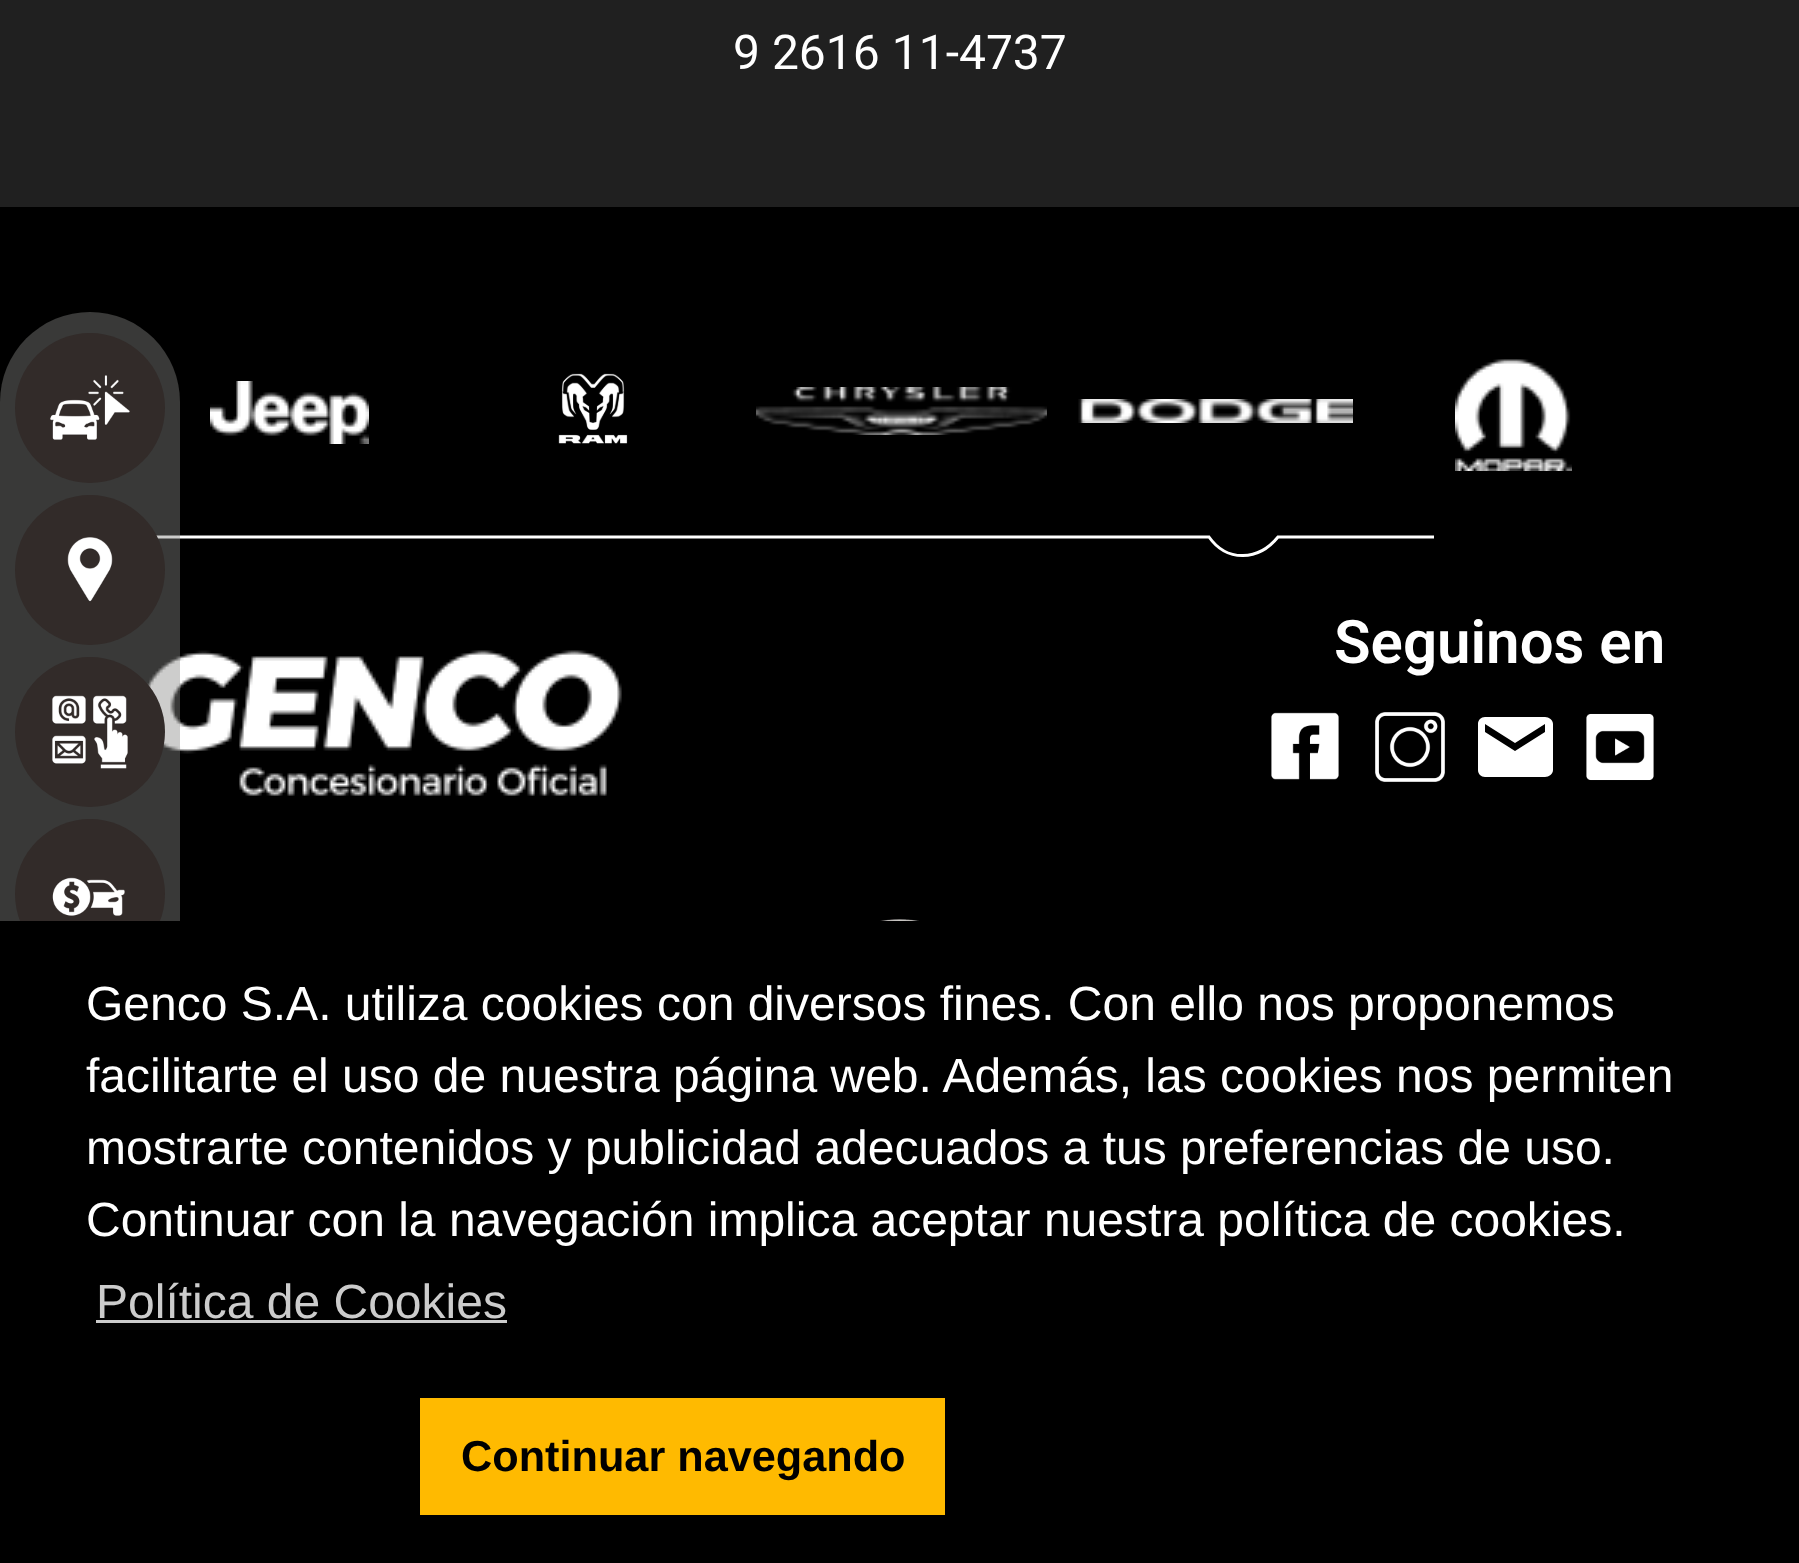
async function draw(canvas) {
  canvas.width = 1799;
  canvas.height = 1563;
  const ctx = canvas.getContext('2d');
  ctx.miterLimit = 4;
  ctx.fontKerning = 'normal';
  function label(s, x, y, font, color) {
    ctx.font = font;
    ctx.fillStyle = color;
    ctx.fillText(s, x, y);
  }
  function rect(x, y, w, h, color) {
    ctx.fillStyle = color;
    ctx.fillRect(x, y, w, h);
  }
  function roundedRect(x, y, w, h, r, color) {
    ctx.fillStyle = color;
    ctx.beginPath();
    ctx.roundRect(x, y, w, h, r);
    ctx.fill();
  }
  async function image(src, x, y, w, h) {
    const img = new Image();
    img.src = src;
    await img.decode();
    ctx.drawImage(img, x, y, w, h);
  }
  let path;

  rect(0, 0, 1799, 1563, '#000');
  path = new Path2D('M135 537H1209C1227 562.5 1258.5 561 1278 537H1434');
  ctx.strokeStyle = '#fff';
  ctx.lineWidth = 3;
  ctx.stroke(path);
  await image('assets/img10.png', 146, 650, 476, 146);
  roundedRect(0, 312, 180, 840, 90, '#8787866b');
  ctx.fillStyle = '#322b29';
  ctx.beginPath();
  ctx.arc(90, 408, 75, 0, 2 * Math.PI);
  ctx.fill();
  await image('assets/img1.png', 50, 375, 80, 65);
  ctx.beginPath();
  ctx.arc(90, 570, 75, 0, 2 * Math.PI);
  ctx.fill();
  await image('assets/img2.png', 67, 537, 46, 65);
  ctx.beginPath();
  ctx.arc(90, 732, 75, 0, 2 * Math.PI);
  ctx.fill();
  await image('assets/img3.png', 52, 695, 76, 74);
  ctx.beginPath();
  ctx.arc(90, 894, 75, 0, 2 * Math.PI);
  ctx.fill();
  await image('assets/img4.png', 52, 877, 73, 39);
  rect(0, 0, 1799, 207, '#202020');
  label('9 2616 11-4737', 733, 69, '48px Roboto', '#fff');
  await image('assets/img5.png', 210, 381, 159, 63);
  await image('assets/img6.png', 558, 373, 70, 71);
  await image('assets/img7.png', 756, 387, 291, 48);
  await image('assets/img8.png', 1078, 399, 275, 24);
  await image('assets/img9.png', 1455, 359, 117, 112);
  label('Seguinos en', 1334, 663, '600 60px Roboto', '#fff');
  await image('assets/img11.png', 1271, 712, 68, 68);
  await image('assets/img12.png', 1375, 712, 70, 70);
  path = new Path2D('M1545 717H1485C1481 717 1478 720 1478 724V770C1478 774 1481 777 1485 777H1545C1549 777 1553 774 1553 770V724C1553 720 1549 717 1545 717ZM1545 732L1515 751L1485 732V724L1515 743L1545 724Z');
  ctx.fill(path);
  await image('assets/img13.png', 1586, 713, 68, 68);
  await image('assets/img14.png', 880, 919, 39, 2);
  rect(0, 921, 180, 231, '#000');
  label('Genco S.A. utiliza cookies con diversos fines. Con ello nos proponemos', 86, 1020, '48px Liberation Sans', '#fff');
  label('facilitarte el uso de nuestra página web. Además, las cookies nos permiten', 86, 1092, '48px Liberation Sans', '#fff');
  label('mostrarte contenidos y publicidad adecuados a tus preferencias de uso.', 86, 1164, '48px Liberation Sans', '#fff');
  label('Continuar con la navegación implica aceptar nuestra política de cookies.', 86, 1236, '48px Liberation Sans', '#fff');
  label('Política de Cookies', 96, 1318, '48px Liberation Sans', '#ccc');
  rect(96, 1320, 411, 3, '#ccc');
  rect(420, 1398, 525, 117, '#ffba00');
  label('Continuar navegando', 461, 1471, 'bold 43.25px Liberation Sans', '#000');
}

draw(document.querySelector('canvas'));
